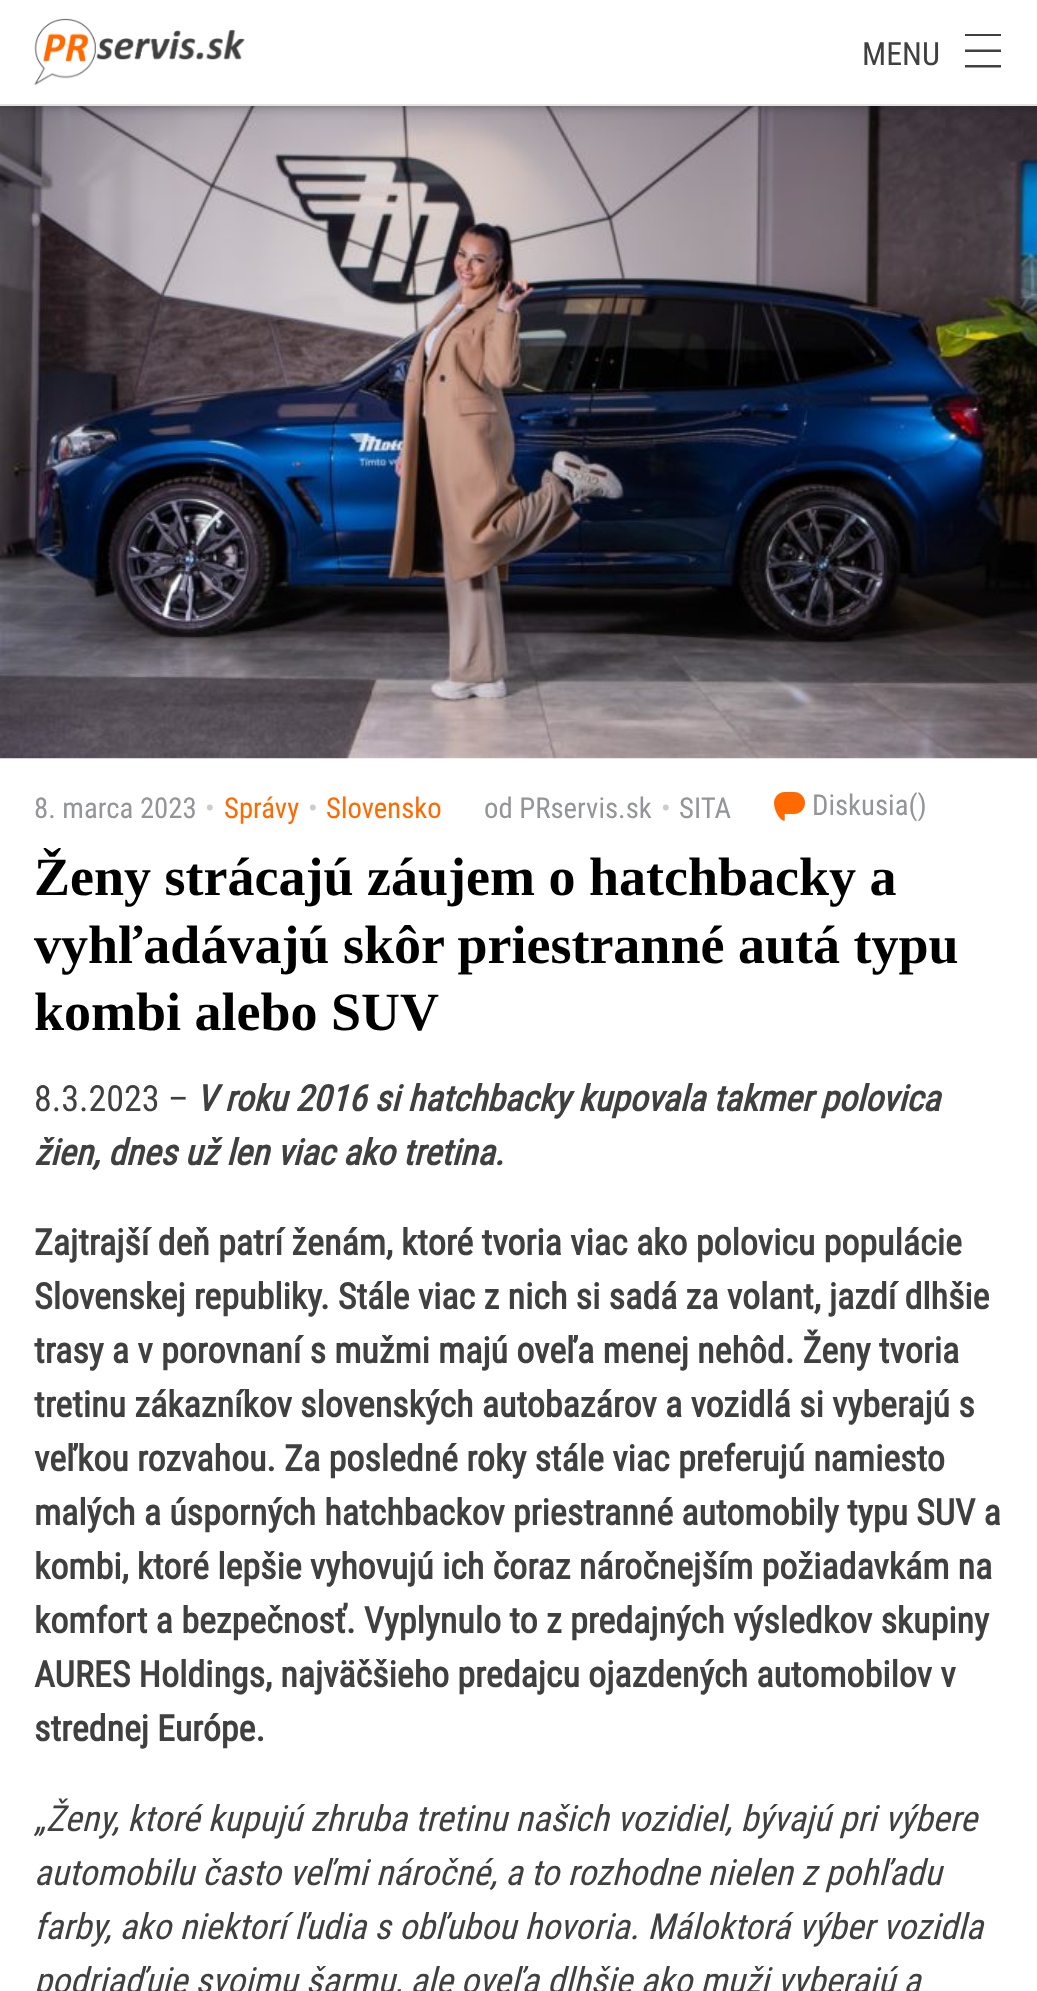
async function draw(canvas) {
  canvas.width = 1037;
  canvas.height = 1991;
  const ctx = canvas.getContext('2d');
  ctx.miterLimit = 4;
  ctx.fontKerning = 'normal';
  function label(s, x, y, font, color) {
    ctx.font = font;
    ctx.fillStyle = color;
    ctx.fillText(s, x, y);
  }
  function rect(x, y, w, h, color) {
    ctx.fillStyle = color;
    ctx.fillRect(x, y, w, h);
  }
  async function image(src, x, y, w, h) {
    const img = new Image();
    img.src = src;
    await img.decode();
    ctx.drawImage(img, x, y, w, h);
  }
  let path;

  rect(0, 0, 1037, 1991, '#fff');
  await image('assets/img2.png', 0, 106, 1037, 653);
  ctx.fillStyle = '#222';
  ctx.filter = 'blur(8px)';
  ctx.beginPath();
  ctx.rect(0, -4, 1037, 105);
  ctx.fill();
  ctx.filter = 'none';
  rect(0, 0, 1037, 104, '#fff');
  rect(0, 104, 1037, 2, '#e6e2e2');
  await image('assets/img1.png', 34, 18, 211, 68);
  label('MENU', 862, 65, '32px Roboto Condensed', '#404040');
  path = new Path2D('M965 34H1001V36H965ZM965 65H1001V67.5H965ZM965 49.5H1001V52H965Z');
  ctx.fill(path);
  label('8. marca 2023', 34, 818, '28.75px Roboto Condensed', '#939598');
  label('•', 205, 818, '28.75px Roboto Condensed', '#ccc');
  label('Správy', 224, 818, '28.75px Roboto Condensed', '#ff6a00');
  label('•', 308, 818, '28.75px Roboto Condensed', '#ccc');
  label('Slovensko', 326, 818, '28.75px Roboto Condensed', '#ff6a00');
  label('od PRservis.sk', 484, 818, '28.75px Roboto Condensed', '#939598');
  label('•', 661, 818, '28.75px Roboto Condensed', '#ccc');
  label('SITA', 679, 818, '28.75px Roboto Condensed', '#939598');
  await image('assets/img3.png', 774, 792, 31, 29);
  label('Diskusia()', 812, 815, '28.75px Roboto Condensed', '#939598');
  label('Ženy strácajú záujem o hatchbacky a', 34, 895, 'bold 54px Liberation Serif', '#000');
  label('vyhľadávajú skôr priestranné autá typu', 34, 963, 'bold 54px Liberation Serif', '#000');
  label('kombi alebo SUV', 34, 1030, 'bold 54px Liberation Serif', '#000');
  label('8.3.2023 –', 34, 1111, '36px Roboto Condensed', '#404040');
  label('V roku 2016 si hatchbacky kupovala takmer polovica', 196, 1111, 'italic bold 36px Roboto Condensed', '#404040');
  label('žien, dnes už len viac ako tretina.', 34, 1165, 'italic bold 36px Roboto Condensed', '#404040');
  label('Zajtrajší deň patrí ženám, ktoré tvoria viac ako polovicu populácie', 34, 1255, 'bold 36px Roboto Condensed', '#404040');
  label('Slovenskej republiky. Stále viac z nich si sadá za volant, jazdí dlhšie', 34, 1309, 'bold 36px Roboto Condensed', '#404040');
  label('trasy a v porovnaní s mužmi majú oveľa menej nehôd. Ženy tvoria', 34, 1363, 'bold 36px Roboto Condensed', '#404040');
  label('tretinu zákazníkov slovenských autobazárov a vozidlá si vyberajú s', 34, 1417, 'bold 36px Roboto Condensed', '#404040');
  label('veľkou rozvahou. Za posledné roky stále viac preferujú namiesto', 34, 1471, 'bold 36px Roboto Condensed', '#404040');
  label('malých a úsporných hatchbackov priestranné automobily typu SUV a', 34, 1525, 'bold 36px Roboto Condensed', '#404040');
  label('kombi, ktoré lepšie vyhovujú ich čoraz náročnejším požiadavkám na', 34, 1579, 'bold 36px Roboto Condensed', '#404040');
  label('komfort a bezpečnosť. Vyplynulo to z predajných výsledkov skupiny', 34, 1633, 'bold 36px Roboto Condensed', '#404040');
  label('AURES Holdings, najväčšieho predajcu ojazdených automobilov v', 34, 1687, 'bold 36px Roboto Condensed', '#404040');
  label('strednej Európe.', 34, 1741, 'bold 36px Roboto Condensed', '#404040');
  label('„Ženy, ktoré kupujú zhruba tretinu našich vozidiel, bývajú pri výbere', 34, 1831, 'italic 36px Roboto Condensed', '#404040');
  label('automobilu často veľmi náročné, a to rozhodne nielen z pohľadu', 34, 1885, 'italic 36px Roboto Condensed', '#404040');
  label('farby, ako niektorí ľudia s obľubou hovoria. Máloktorá výber vozidla', 34, 1939, 'italic 36px Roboto Condensed', '#404040');
  label('podriaďuje svojmu šarmu, ale oveľa dlhšie ako muži vyberajú a', 34, 1993, 'italic 36px Roboto Condensed', '#404040');
}

draw(document.querySelector('canvas'));
